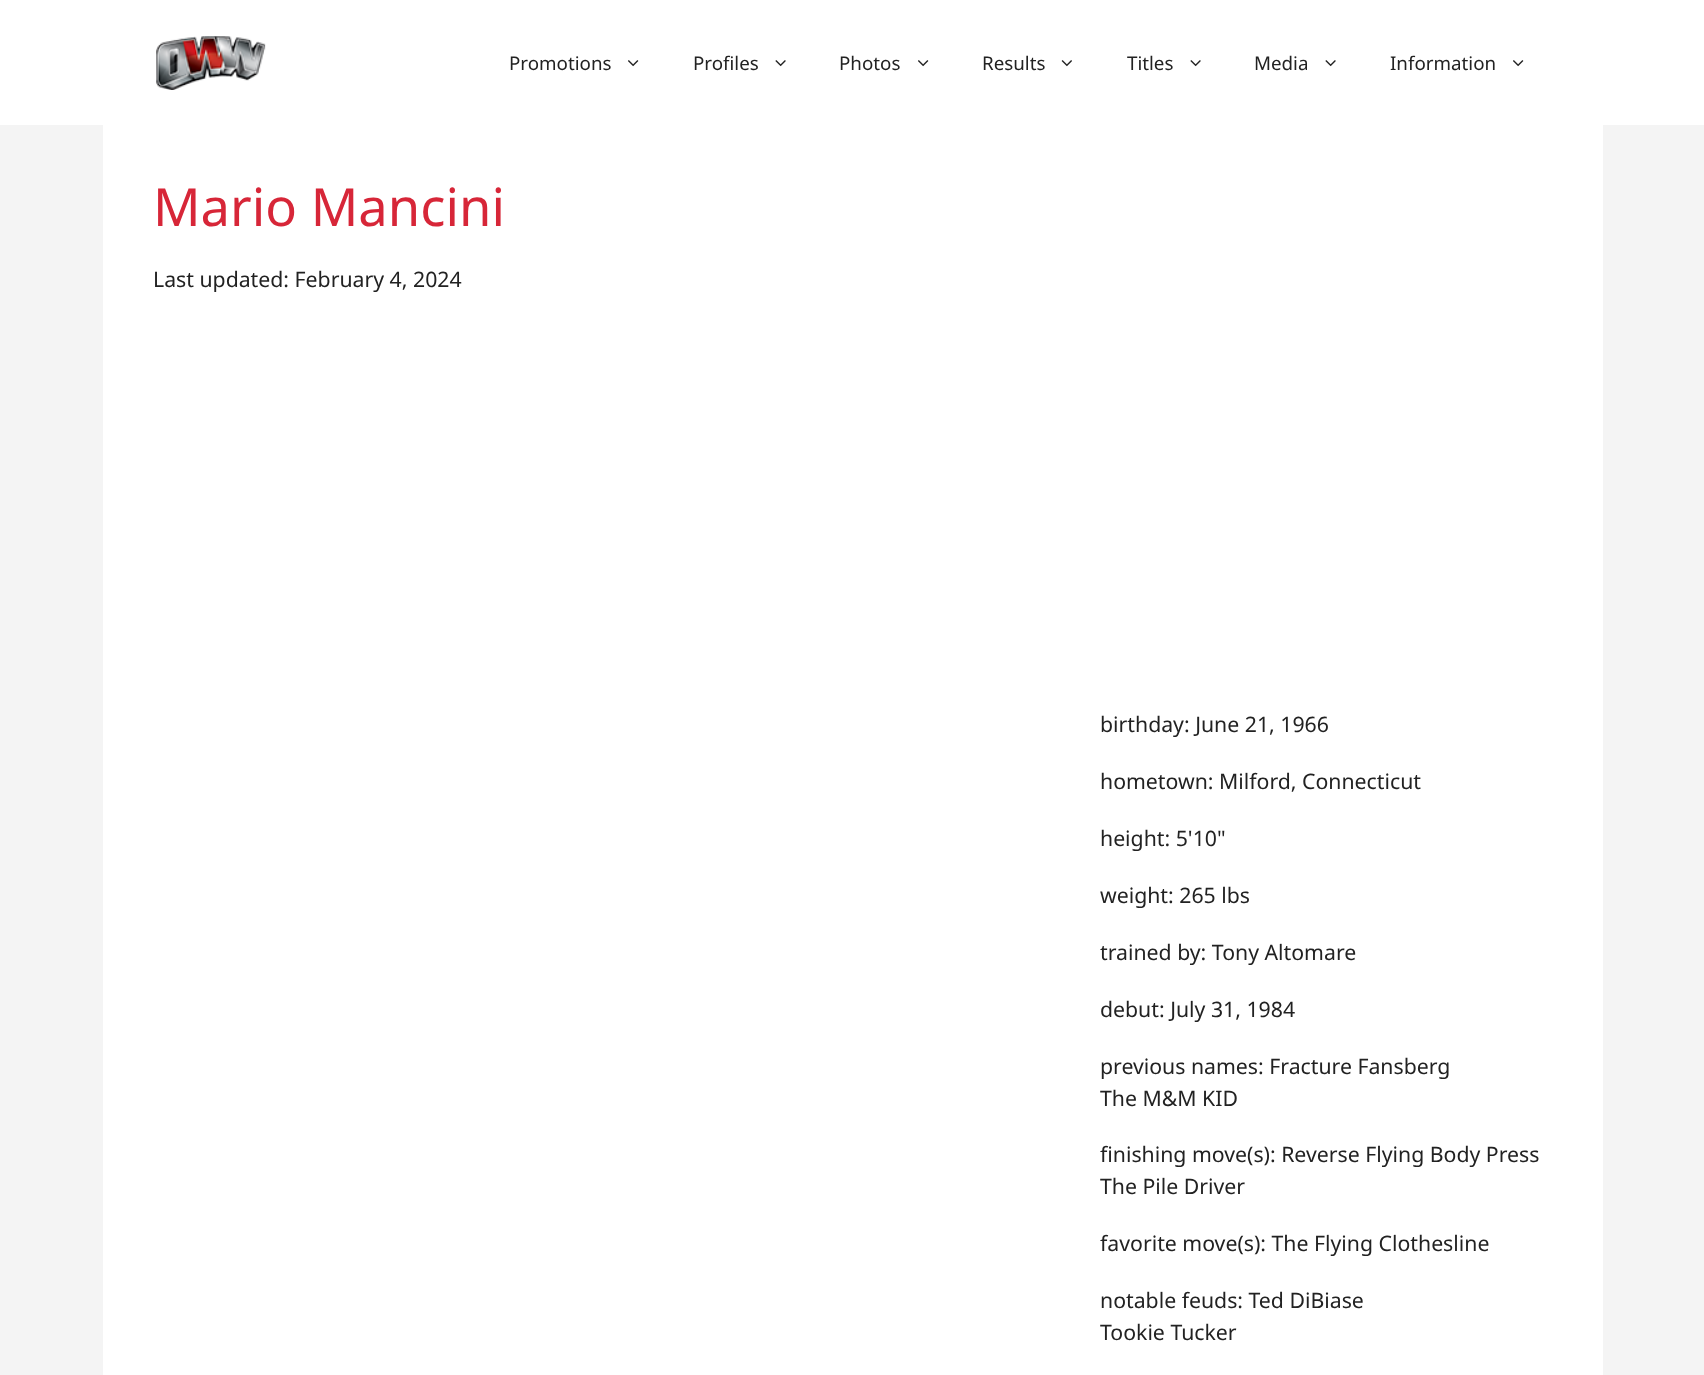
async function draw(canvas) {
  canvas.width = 1704;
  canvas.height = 1375;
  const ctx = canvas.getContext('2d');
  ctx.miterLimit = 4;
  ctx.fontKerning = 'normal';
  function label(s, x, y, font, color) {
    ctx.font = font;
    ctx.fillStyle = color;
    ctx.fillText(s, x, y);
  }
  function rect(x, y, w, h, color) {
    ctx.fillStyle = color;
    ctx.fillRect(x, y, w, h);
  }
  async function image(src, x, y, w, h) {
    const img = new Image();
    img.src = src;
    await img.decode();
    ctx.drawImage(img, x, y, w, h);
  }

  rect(0, 0, 1704, 1375, '#f4f4f4');
  rect(0, 0, 1704, 125, '#fff');
  await image('assets/img1.png', 156, 36, 110, 54);
  label('Promotions', 509, 70, '18.75px Noto Sans', '#222');
  await image('assets/img2.png', 628, 60, 11, 7);
  label('Profiles', 693, 70, '18.75px Noto Sans', '#222');
  await image('assets/img3.png', 775, 60, 11, 7);
  label('Photos', 839, 70, '18.75px Noto Sans', '#222');
  await image('assets/img2.png', 918, 60, 11, 7);
  label('Results', 982, 70, '18.75px Noto Sans', '#222');
  await image('assets/img4.png', 1061, 60, 11, 7);
  label('Titles', 1127, 70, '18.75px Noto Sans', '#222');
  await image('assets/img3.png', 1190, 60, 11, 7);
  label('Media', 1254, 70, '18.75px Noto Sans', '#222');
  await image('assets/img3.png', 1325, 60, 11, 7);
  label('Information', 1390, 70, '18.75px Noto Sans', '#222');
  await image('assets/img2.png', 1513, 60, 11, 7);
  rect(103, 125, 1500, 1250, '#fff');
  label('Mario Mancini', 153, 226, '52.5px Noto Sans', '#d72638');
  label('Last updated: February 4, 2024', 153, 287, '21.25px Noto Sans', '#222');
  label('birthday: June 21, 1966', 1100, 732, '21.25px Noto Sans', '#222');
  label('hometown: Milford, Connecticut', 1100, 789, '21.25px Noto Sans', '#222');
  label('height: 5\'10"', 1100, 846, '21.25px Noto Sans', '#222');
  label('weight: 265 lbs', 1100, 903, '21.25px Noto Sans', '#222');
  label('trained by: Tony Altomare', 1100, 960, '21.25px Noto Sans', '#222');
  label('debut: July 31, 1984', 1100, 1017, '21.25px Noto Sans', '#222');
  label('previous names: Fracture Fansberg', 1100, 1074, '21.25px Noto Sans', '#222');
  label('The M&M KID', 1100, 1106, '21.25px Noto Sans', '#222');
  label('finishing move(s): Reverse Flying Body Press', 1100, 1162, '21.25px Noto Sans', '#222');
  label('The Pile Driver', 1100, 1194, '21.25px Noto Sans', '#222');
  label('favorite move(s): The Flying Clothesline', 1100, 1251, '21.25px Noto Sans', '#222');
  label('notable feuds: Ted DiBiase', 1100, 1308, '21.25px Noto Sans', '#222');
  label('Tookie Tucker', 1100, 1340, '21.25px Noto Sans', '#222');
}

draw(document.querySelector('canvas'));
